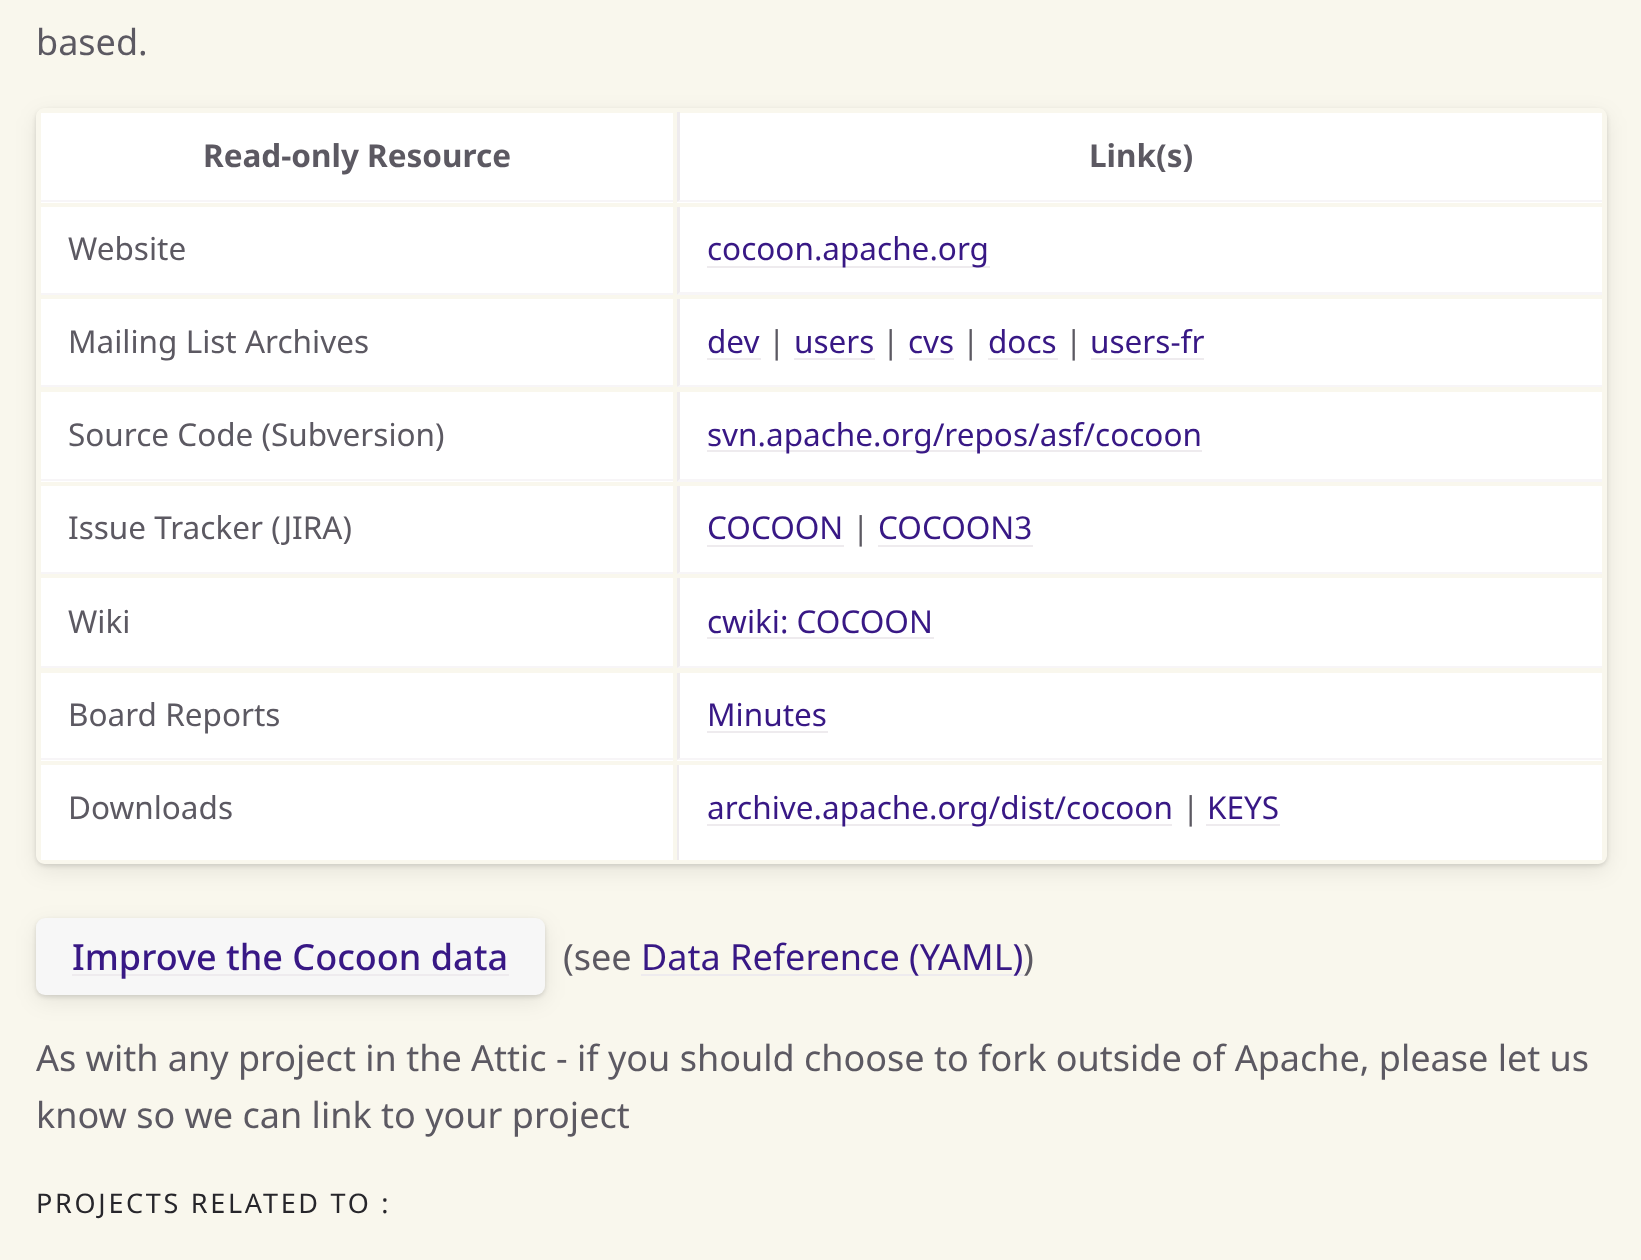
async function draw(canvas) {
  canvas.width = 1641;
  canvas.height = 1260;
  const ctx = canvas.getContext('2d');
  ctx.miterLimit = 4;
  ctx.fontKerning = 'normal';
  function label(s, x, y, font, color) {
    ctx.font = font;
    ctx.fillStyle = color;
    ctx.fillText(s, x, y);
  }
  function rect(x, y, w, h, color) {
    ctx.fillStyle = color;
    ctx.fillRect(x, y, w, h);
  }
  function roundedRect(x, y, w, h, r, color) {
    ctx.fillStyle = color;
    ctx.beginPath();
    ctx.roundRect(x, y, w, h, r);
    ctx.fill();
  }
  let path;

  rect(0, 0, 1641, 1260, '#f9f7ed');
  label('based.', 36, 55, '36px Noto Sans', '#5c5962');
  ctx.save();
  path = new Path2D('M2 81H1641V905H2ZM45 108H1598C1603 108 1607 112 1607 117V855C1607 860 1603 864 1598 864H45C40 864 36 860 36 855V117C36 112 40 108 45 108Z');
  ctx.clip(path, 'evenodd');
  ctx.fillStyle = '#00000014';
  ctx.filter = 'blur(11px)';
  ctx.beginPath();
  ctx.roundRect(36, 115, 1571, 756, 9);
  ctx.fill();
  ctx.filter = 'none';
  ctx.restore();
  ctx.save();
  path = new Path2D('M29 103H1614V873H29ZM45 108H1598C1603 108 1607 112 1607 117V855C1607 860 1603 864 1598 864H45C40 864 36 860 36 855V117C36 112 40 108 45 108Z');
  ctx.clip(path, 'evenodd');
  ctx.fillStyle = '#0000001f';
  ctx.filter = 'blur(2px)';
  ctx.beginPath();
  ctx.roundRect(36, 110, 1571, 756, 9);
  ctx.fill();
  ctx.filter = 'none';
  ctx.restore();
  rect(41, 113, 632, 90, '#fff');
  rect(41, 200, 632, 2, '#f7f5f7');
  label('Read-only Resource', 203, 167, 'bold 31.5px Noto Sans', '#5c5962');
  rect(677, 113, 925, 90, '#fff');
  ctx.fillStyle = '#f7f5f7';
  path = new Path2D('M1602 202H677L680 200H1602Z');
  ctx.fill(path);
  ctx.fillStyle = '#eeebee';
  path = new Path2D('M677 202V112H680V200Z');
  ctx.fill(path);
  label('Link(s)', 1089, 167, 'bold 31.5px Noto Sans', '#5c5962');
  rect(41, 207, 632, 86, '#fff');
  rect(41, 293, 632, 2, '#f7f5f7');
  label('Website', 68, 260, '31.5px Noto Sans', '#5c5962');
  rect(677, 207, 925, 88, '#fff');
  ctx.fillStyle = '#f7f5f7';
  path = new Path2D('M1602 295H677L680 292H1602Z');
  ctx.fill(path);
  ctx.fillStyle = '#eeebee';
  path = new Path2D('M677 295V207H680V292Z');
  ctx.fill(path);
  rect(707, 266, 283, 2, '#eeebee');
  label('cocoon.apache.org', 707, 260, '31.5px Noto Sans', '#381885');
  rect(41, 299, 632, 86, '#fff');
  rect(41, 385, 632, 2, '#f7f5f7');
  label('Mailing List Archives', 68, 353, '31.5px Noto Sans', '#5c5962');
  rect(677, 299, 925, 88, '#fff');
  ctx.fillStyle = '#f7f5f7';
  path = new Path2D('M1602 387H677L680 385H1602Z');
  ctx.fill(path);
  ctx.fillStyle = '#eeebee';
  path = new Path2D('M677 387V299H680V385Z');
  ctx.fill(path);
  label('dev', 707, 353, '31.5px Noto Sans', '#381885');
  rect(707, 358, 54, 2, '#eeebee');
  label('|', 768, 353, '31.5px Noto Sans', '#5c5962');
  label('users', 794, 353, '31.5px Noto Sans', '#381885');
  rect(794, 358, 81, 2, '#eeebee');
  label('|', 882, 353, '31.5px Noto Sans', '#5c5962');
  label('cvs', 908, 353, '31.5px Noto Sans', '#381885');
  rect(909, 358, 45, 2, '#eeebee');
  label('|', 962, 353, '31.5px Noto Sans', '#5c5962');
  label('docs', 988, 353, '31.5px Noto Sans', '#381885');
  rect(988, 358, 70, 2, '#eeebee');
  label('|', 1065, 353, '31.5px Noto Sans', '#5c5962');
  label('users-fr', 1090, 353, '31.5px Noto Sans', '#381885');
  rect(1091, 358, 113, 2, '#eeebee');
  rect(41, 392, 632, 90, '#fff');
  rect(41, 479, 632, 2, '#f7f5f7');
  label('Source Code (Subversion)', 68, 446, '31.5px Noto Sans', '#5c5962');
  rect(677, 392, 925, 90, '#fff');
  ctx.fillStyle = '#f7f5f7';
  path = new Path2D('M1602 482H677L680 479H1602Z');
  ctx.fill(path);
  ctx.fillStyle = '#eeebee';
  path = new Path2D('M677 482V392H680V479Z');
  ctx.fill(path);
  rect(707, 450, 495, 2, '#eeebee');
  label('svn.apache.org/repos/asf/cocoon', 707, 446, '31.5px Noto Sans', '#381885');
  rect(41, 486, 632, 86, '#fff');
  rect(41, 572, 632, 2, '#f7f5f7');
  label('Issue Tracker (JIRA)', 68, 539, '31.5px Noto Sans', '#5c5962');
  rect(677, 486, 925, 88, '#fff');
  ctx.fillStyle = '#f7f5f7';
  path = new Path2D('M1602 574H677L680 572H1602Z');
  ctx.fill(path);
  ctx.fillStyle = '#eeebee';
  path = new Path2D('M677 574V486H680V572Z');
  ctx.fill(path);
  label('COCOON', 707, 539, '31.5px Noto Sans', '#381885');
  rect(707, 545, 137, 2, '#eeebee');
  label('|', 852, 539, '31.5px Noto Sans', '#5c5962');
  label('COCOON3', 878, 539, '31.5px Noto Sans', '#381885');
  rect(878, 545, 155, 2, '#eeebee');
  rect(41, 578, 632, 88, '#fff');
  rect(41, 666, 632, 2, '#f7f5f7');
  label('Wiki', 68, 633, '31.5px Noto Sans', '#5c5962');
  rect(677, 578, 925, 90, '#fff');
  ctx.fillStyle = '#f7f5f7';
  path = new Path2D('M1602 668H677L680 666H1602Z');
  ctx.fill(path);
  ctx.fillStyle = '#eeebee';
  path = new Path2D('M677 668V578H680V666Z');
  ctx.fill(path);
  label('cwiki: COCOON', 707, 633, '31.5px Noto Sans', '#381885');
  rect(707, 637, 227, 2, '#eeebee');
  rect(41, 673, 632, 88, '#fff');
  rect(41, 758, 632, 2, '#f7f5f7');
  label('Board Reports', 68, 726, '31.5px Noto Sans', '#5c5962');
  rect(677, 673, 925, 88, '#fff');
  ctx.fillStyle = '#f7f5f7';
  path = new Path2D('M1602 760H677L680 758H1602Z');
  ctx.fill(path);
  ctx.fillStyle = '#eeebee';
  path = new Path2D('M677 760V673H680V758Z');
  ctx.fill(path);
  label('Minutes', 707, 726, '31.5px Noto Sans', '#381885');
  rect(707, 731, 121, 2, '#eeebee');
  rect(41, 765, 632, 95, '#fff');
  label('Downloads', 68, 819, '31.5px Noto Sans', '#5c5962');
  rect(679, 765, 923, 95, '#fff');
  rect(677, 765, 2, 95, '#eeebee');
  rect(707, 824, 465, 2, '#eeebee');
  label('archive.apache.org/dist/cocoon', 707, 819, '31.5px Noto Sans', '#381885');
  label('|', 1182, 819, '31.5px Noto Sans', '#5c5962');
  label('KEYS', 1207, 819, '31.5px Noto Sans', '#381885');
  rect(1206, 824, 74, 2, '#eeebee');
  ctx.fillStyle = '#00000014';
  ctx.filter = 'blur(11px)';
  ctx.beginPath();
  ctx.roundRect(36, 925, 509, 76, 9);
  ctx.fill();
  ctx.filter = 'none';
  ctx.fillStyle = '#0000001f';
  ctx.filter = 'blur(2px)';
  ctx.beginPath();
  ctx.roundRect(36, 920, 509, 77, 9);
  ctx.fill();
  ctx.filter = 'none';
  roundedRect(36, 918, 509, 77, 9, '#f7f7f7');
  rect(72, 974, 437, 2, '#eeebee');
  label('Improve the Cocoon data', 72, 970, '500 36px Noto Sans', '#381885');
  label('(see', 563, 970, '36px Noto Sans', '#5c5962');
  rect(641, 974, 383, 2, '#eeebee');
  label('Data Reference (YAML)', 641, 970, '36px Noto Sans', '#381885');
  label(')', 1023, 970, '36px Noto Sans', '#5c5962');
  label('As with any project in the Attic - if you should choose to fork outside of Apache, please let us', 36, 1071, '36px Noto Sans', '#5c5962');
  label('know so we can link to your project', 36, 1128, '36px Noto Sans', '#5c5962');
  ctx.letterSpacing = '2.7px';
  label('PROJECTS RELATED TO :', 36, 1213, '27px Noto Sans', '#27262b');
}

draw(document.querySelector('canvas'));
